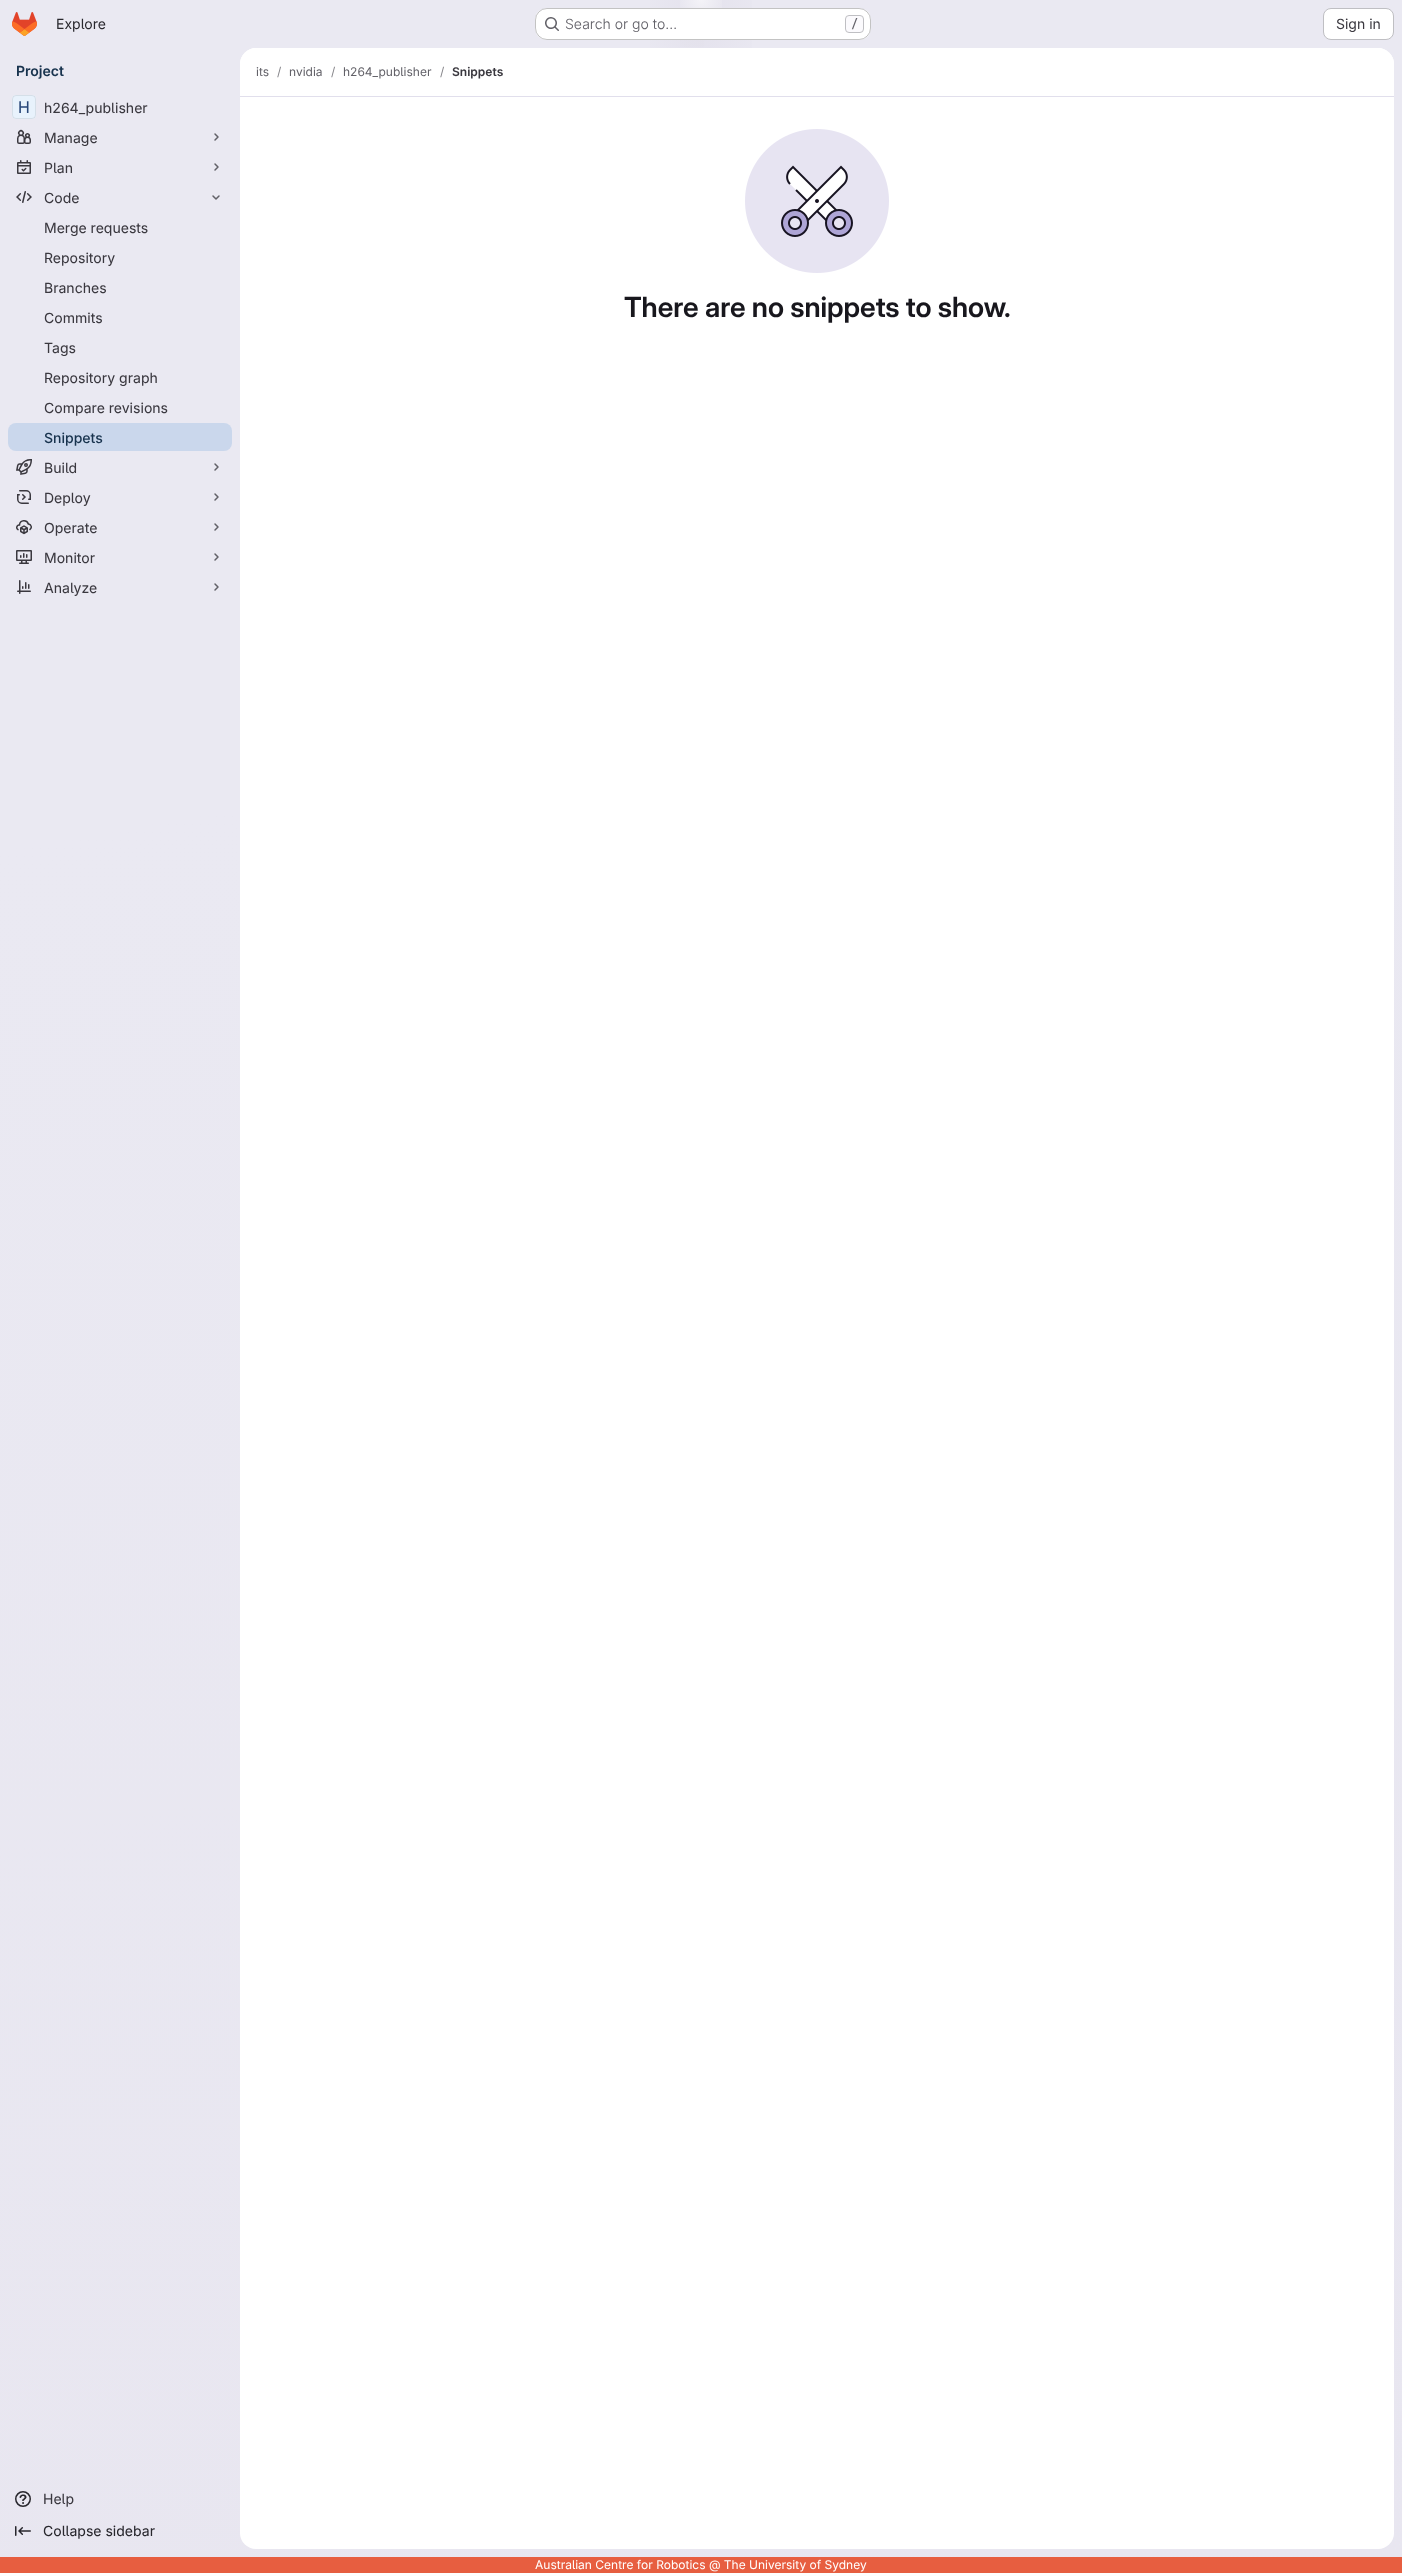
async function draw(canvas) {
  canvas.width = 1402;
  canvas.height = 2573;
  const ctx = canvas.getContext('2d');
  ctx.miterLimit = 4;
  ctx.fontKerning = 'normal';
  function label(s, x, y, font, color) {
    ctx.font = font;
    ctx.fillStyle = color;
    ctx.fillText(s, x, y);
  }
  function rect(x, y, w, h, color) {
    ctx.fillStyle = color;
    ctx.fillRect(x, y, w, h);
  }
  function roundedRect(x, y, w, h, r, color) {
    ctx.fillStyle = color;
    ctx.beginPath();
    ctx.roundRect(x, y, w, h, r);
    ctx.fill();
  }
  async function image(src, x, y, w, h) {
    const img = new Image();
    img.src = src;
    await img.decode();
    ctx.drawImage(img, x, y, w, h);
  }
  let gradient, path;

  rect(0, 0, 1402, 2573, '#fff');
  gradient = ctx.createLinearGradient(942, 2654, 460, -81);
  gradient.addColorStop(0, '#e8e6f0');
  gradient.addColorStop(0.7, '#eae9f2');
  ctx.fillStyle = gradient;
  ctx.fillRect(0, 0, 1402, 2557);
  gradient = ctx.createRadialGradient(701, 0, 0, 701, 0, 701);
  gradient.addColorStop(0, '#e4e2ed');
  gradient.addColorStop(0.1, '#e4e2ed00');
  ctx.fillStyle = gradient;
  ctx.beginPath();
  ctx.rect(650, 0, 102, 48);
  ctx.save();
  ctx.clip();
  ctx.scale(1, 2573 / 701);
  ctx.fillRect(0, 0, 1402, 701);
  ctx.restore();
  gradient = ctx.createRadialGradient(701, 0, 0, 701, 0, 701);
  gradient.addColorStop(0, '#e4e2ec');
  gradient.addColorStop(0.07, '#e4e2ec00');
  ctx.fillStyle = gradient;
  ctx.beginPath();
  ctx.rect(680, 7, 24, 40);
  ctx.save();
  ctx.clip();
  ctx.scale(1, 2573 / 701);
  ctx.fillRect(0, 0, 1402, 701);
  ctx.restore();
  gradient = ctx.createRadialGradient(701, 0, 0, 701, 0, 2667);
  gradient.addColorStop(0, '#ffffff99');
  gradient.addColorStop(0.01, '#ffffff00');
  ctx.fillStyle = gradient;
  ctx.fillRect(680, 0, 42, 23);
  await image('assets/img1.png', 12, 12, 25, 24);
  label('Explore', 56, 29, '14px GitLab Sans', '#28272d');
  roundedRect(535, 8, 336, 32, 12, '#fff');
  ctx.beginPath();
  ctx.roundRect(535.5, 8.5, 335, 31, 11.5);
  ctx.strokeStyle = '#0505063d';
  ctx.stroke();
  await image('assets/img2.png', 545, 17, 14, 14);
  label('Search or go to…', 565, 29, '300 14px GitLab Sans', '#626168');
  ctx.fillStyle = '#fbfafd';
  ctx.beginPath();
  ctx.roundRect(845.5, 15.5, 18, 17, 3.5);
  ctx.fill();
  ctx.strokeStyle = '#bfbfc3';
  ctx.stroke();
  label('/', 851, 28, '500 12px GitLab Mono', '#626168');
  ctx.fillStyle = '#fff';
  ctx.beginPath();
  ctx.roundRect(1323.5, 8.5, 70, 31, 7.5);
  ctx.fill();
  ctx.stroke();
  label('Sign in', 1336, 29, '14px GitLab Sans', '#3a383f');
  label('Project', 16, 76, '600 14px "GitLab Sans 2"', '#18334e');
  roundedRect(12, 95, 24, 24, 4, '#fff');
  roundedRect(12, 95, 24, 24, 4, '#9dc7f13d');
  ctx.beginPath();
  ctx.roundRect(12.5, 95.5, 23, 23, 3.5);
  ctx.strokeStyle = '#05050614';
  ctx.stroke();
  label('H', 18, 113, '16px "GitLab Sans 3"', '#284779');
  label('h264_publisher', 44, 113, '14px "GitLab Sans 2"', '#3a383f');
  await image('assets/img3.png', 17, 129, 14, 15);
  label('Manage', 44, 143, '14px "GitLab Sans 2"', '#3a383f');
  path = new Path2D('M215 134L218 137L215 140');
  ctx.strokeStyle = '#626168';
  ctx.lineWidth = 1.5;
  ctx.lineCap = 'round';
  ctx.lineJoin = 'round';
  ctx.stroke(path);
  await image('assets/img4.png', 17, 160, 14, 14);
  label('Plan', 44, 173, '14px "GitLab Sans 2"', '#3a383f');
  path = new Path2D('M215 164L218 167L215 170');
  ctx.stroke(path);
  await image('assets/img5.png', 16, 191, 16, 12);
  label('Code', 44, 203, '14px "GitLab Sans 2"', '#3a383f');
  path = new Path2D('M219 196L216 199L213 196');
  ctx.stroke(path);
  label('Merge requests', 44, 233, '14px "GitLab Sans 2"', '#3a383f');
  label('Repository', 44, 263, '14px "GitLab Sans 2"', '#3a383f');
  label('Branches', 44, 293, '14px "GitLab Sans 2"', '#3a383f');
  label('Commits', 44, 323, '14px "GitLab Sans 2"', '#3a383f');
  label('Tags', 44, 353, '14px "GitLab Sans 2"', '#3a383f');
  label('Repository graph', 44, 383, '14px "GitLab Sans 2"', '#3a383f');
  label('Compare revisions', 44, 413, '14px "GitLab Sans 2"', '#3a383f');
  roundedRect(8, 423, 224, 28, 8, '#cad7ec');
  label('Snippets', 44, 443, '500 14px GitLab Sans', '#18334e');
  await image('assets/img6.png', 16, 459, 16, 16);
  label('Build', 44, 473, '14px "GitLab Sans 2"', '#3a383f');
  path = new Path2D('M215 464L218 467L215 470');
  ctx.stroke(path);
  await image('assets/img7.png', 17, 490, 14, 14);
  label('Deploy', 44, 503, '14px "GitLab Sans 2"', '#3a383f');
  path = new Path2D('M215 494L218 497L215 500');
  ctx.stroke(path);
  await image('assets/img8.png', 16, 520, 16, 15);
  label('Operate', 44, 533, '14px "GitLab Sans 2"', '#3a383f');
  path = new Path2D('M215 524L218 527L215 530');
  ctx.stroke(path);
  await image('assets/img9.png', 16, 550, 16, 14);
  label('Monitor', 44, 563, '14px "GitLab Sans 2"', '#3a383f');
  path = new Path2D('M215 554L218 557L215 560');
  ctx.stroke(path);
  await image('assets/img10.png', 17, 580, 14, 14);
  label('Analyze', 44, 593, '14px "GitLab Sans 2"', '#3a383f');
  path = new Path2D('M215 584L218 587L215 590');
  ctx.stroke(path);
  await image('assets/img11.png', 15, 2491, 16, 16);
  label('Help', 43, 2504, '14px "GitLab Sans 2"', '#3a383f');
  await image('assets/img12.png', 15, 2526, 16, 10);
  label('Collapse sidebar', 43, 2536, '14px "GitLab Sans 2"', '#28272d');
  roundedRect(240, 48, 1154, 2501, 16, '#fff');
  ctx.beginPath();
  ctx.roundRect(240, 48, 1154, 49, [16, 16, 0, 0]);
  ctx.fill();
  rect(240, 96, 1154, 1, '#e1dfec');
  label('its', 256, 76, '12px GitLab Sans', '#626168');
  label('/', 277, 76, '12px GitLab Sans', '#89888d');
  label('nvidia', 289, 76, '12px GitLab Sans', '#626168');
  label('/', 331, 76, '12px GitLab Sans', '#89888d');
  label('h264_publisher', 343, 76, '12px GitLab Sans', '#626168');
  label('/', 440, 76, '12px GitLab Sans', '#89888d');
  label('Snippets', 452, 76, '600 12px "GitLab Sans 2"', '#3a383f');
  await image('assets/img13.png', 745, 129, 144, 144);
  label('There are no snippets to show.', 624, 317, '600 28px GitLab Sans', '#18171d');
  rect(0, 2557, 1402, 16, '#e75e40');
  label('Australian Centre for Robotics @ The University of Sydney', 535, 2569, '12px GitLab Sans', '#fff');
}

draw(document.querySelector('canvas'));
